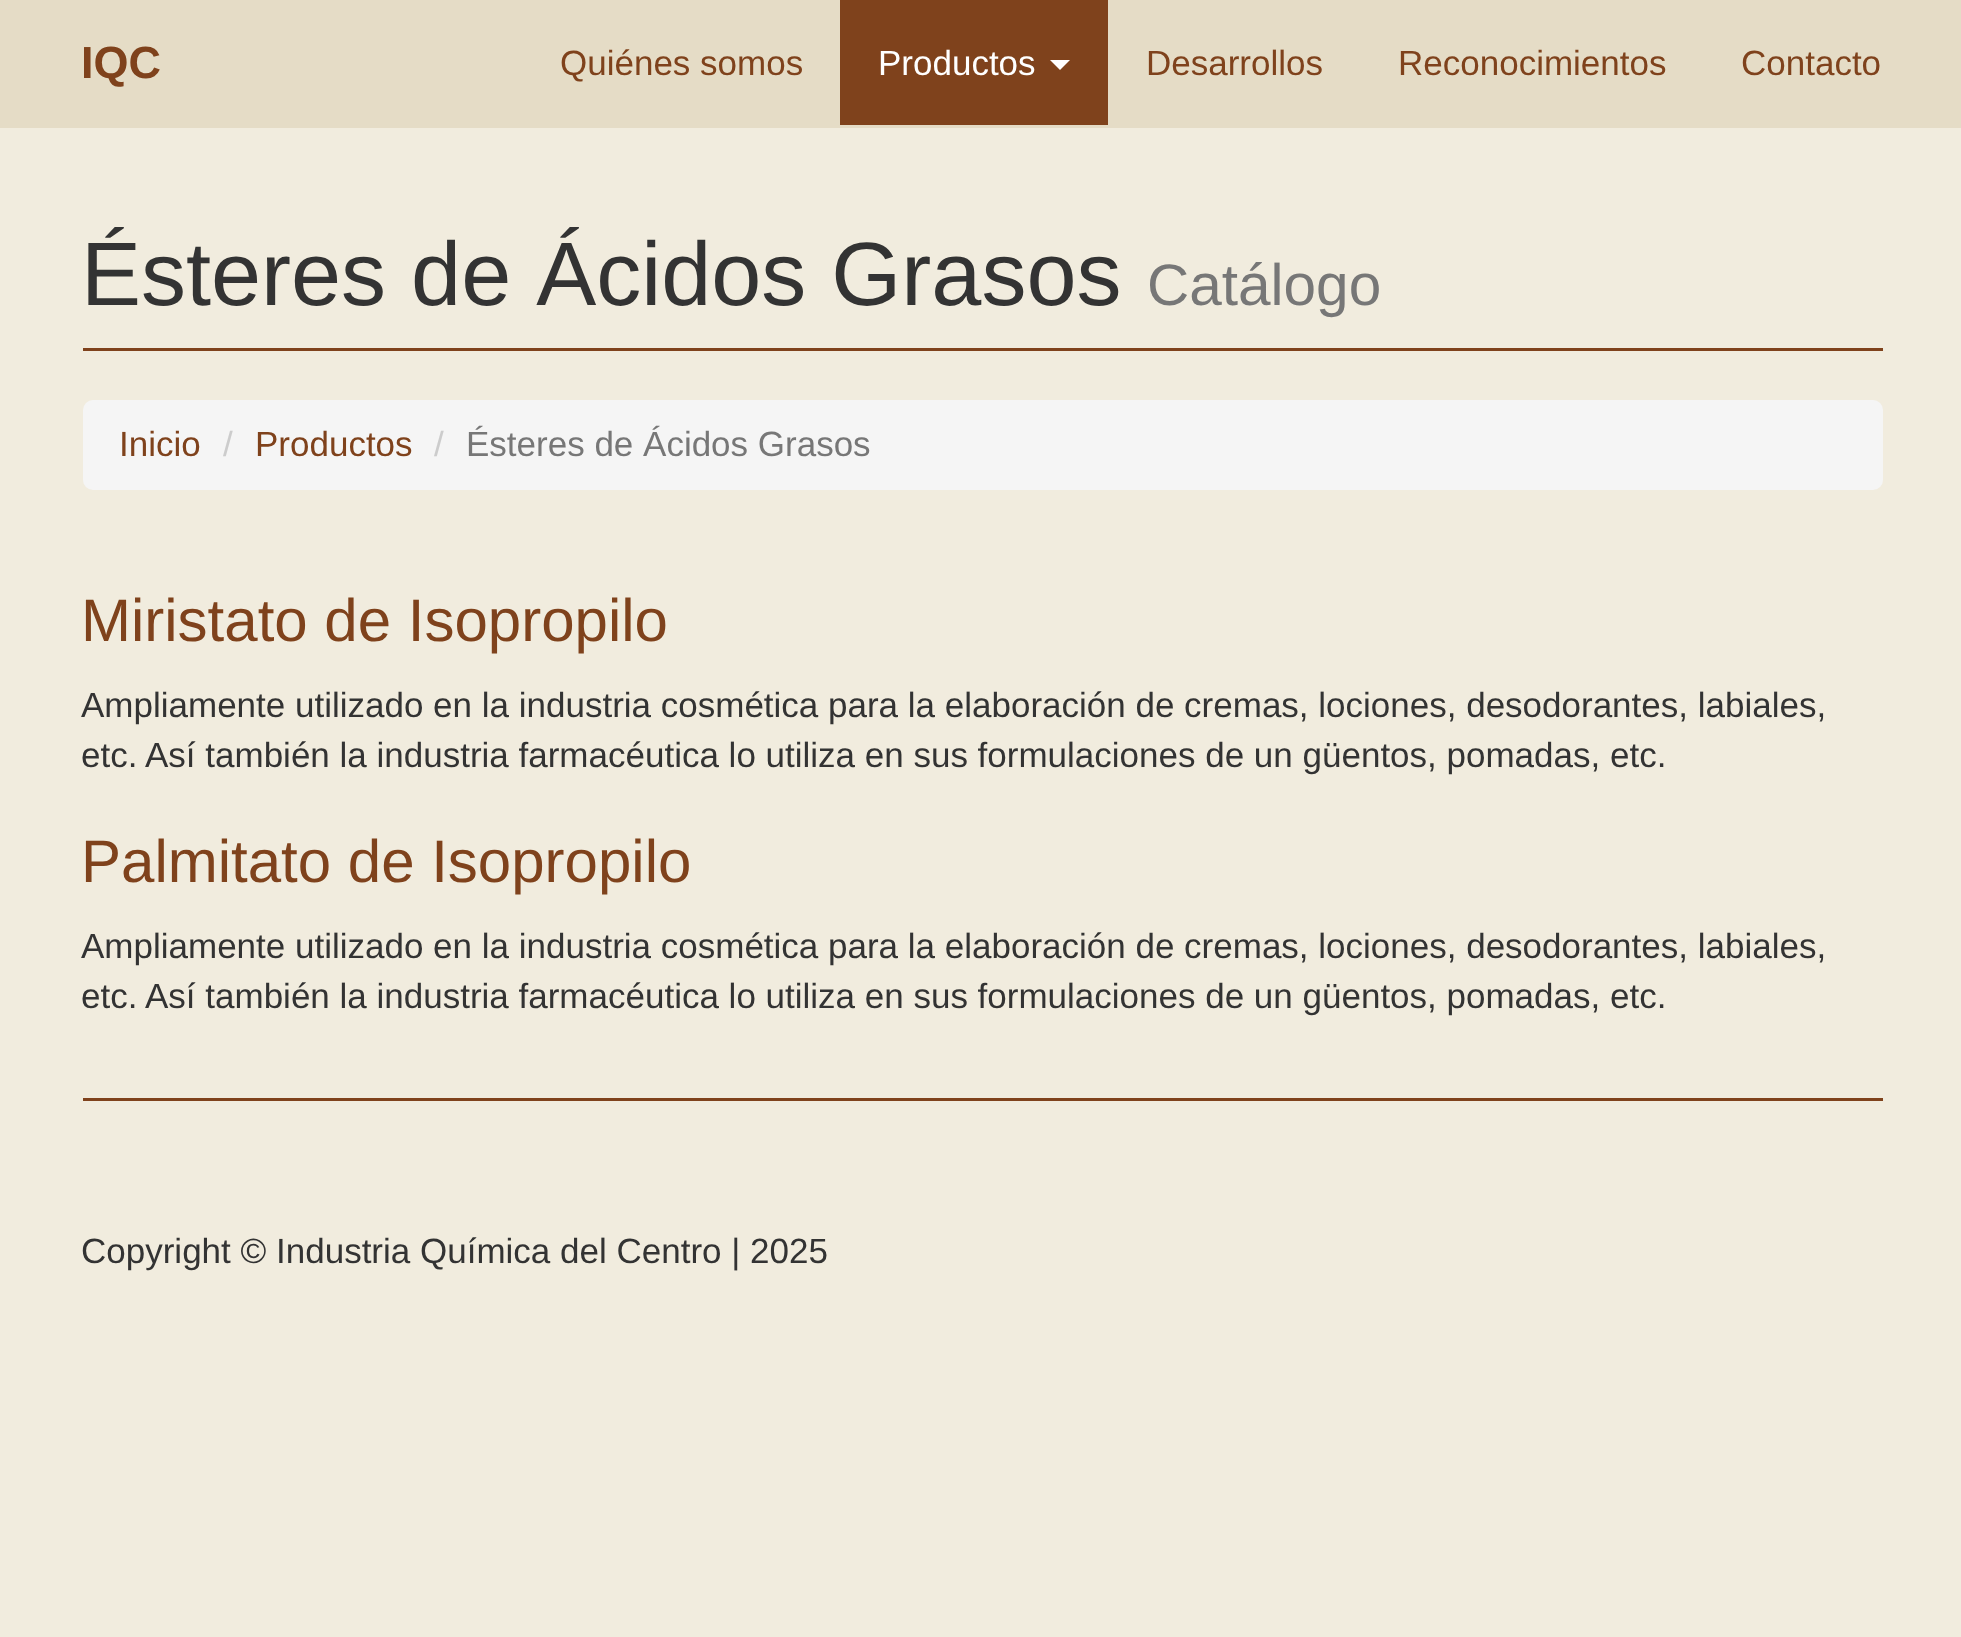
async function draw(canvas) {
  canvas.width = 1961;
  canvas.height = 1637;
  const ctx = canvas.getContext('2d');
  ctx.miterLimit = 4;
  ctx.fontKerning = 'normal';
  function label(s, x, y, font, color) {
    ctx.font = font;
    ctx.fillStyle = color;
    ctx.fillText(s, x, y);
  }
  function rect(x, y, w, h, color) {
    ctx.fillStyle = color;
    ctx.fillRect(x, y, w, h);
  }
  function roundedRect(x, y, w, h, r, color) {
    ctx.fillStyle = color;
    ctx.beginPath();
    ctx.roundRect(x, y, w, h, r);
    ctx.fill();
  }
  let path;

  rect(0, 0, 1961, 1637, '#f1ecde');
  rect(0, 0, 1961, 128, '#e5dcc6');
  label('IQC', 81, 78, 'bold 45px Liberation Sans', '#7f421c');
  label('Quiénes somos', 560, 75, '35px Liberation Sans', '#7f421c');
  rect(840, 0, 268, 125, '#7f421c');
  label('Productos', 878, 75, '35px Liberation Sans', '#fff');
  path = new Path2D('M1050 60H1070L1060 70Z');
  ctx.fill(path);
  label('Desarrollos', 1146, 75, '35px Liberation Sans', '#7f421c');
  label('Reconocimientos', 1398, 75, '35px Liberation Sans', '#7f421c');
  label('Contacto', 1741, 75, '35px Liberation Sans', '#7f421c');
  rect(83, 348, 1800, 3, '#7f421c');
  label('Ésteres de Ácidos Grasos', 81, 305, '90px Liberation Sans', '#333');
  label('Catálogo', 1147, 305, '58.5px Liberation Sans', '#777');
  roundedRect(83, 400, 1800, 90, 10, '#f5f5f5');
  label('Inicio', 119, 456, '35px Liberation Sans', '#7f421c');
  label('/', 223, 456, '35px Liberation Sans', '#ccc');
  label('Productos', 255, 456, '35px Liberation Sans', '#7f421c');
  label('/', 434, 456, '35px Liberation Sans', '#ccc');
  label('Ésteres de Ácidos Grasos', 466, 456, '35px Liberation Sans', '#777');
  label('Miristato de Isopropilo', 81, 641, '60px Liberation Sans', '#7f421c');
  label('Ampliamente utilizado en la industria cosmética para la elaboración de cremas, lociones, desodorantes, labiales,', 81, 717, '35px Liberation Sans', '#333');
  label('etc.', 81, 767, '35px Liberation Sans', '#333');
  label('Así también la industria farmacéutica lo utiliza en sus formulaciones de un güentos, pomadas, etc.', 145, 767, '35px Liberation Sans', '#333');
  label('Palmitato de Isopropilo', 81, 882, '60px Liberation Sans', '#7f421c');
  label('Ampliamente utilizado en la industria cosmética para la elaboración de cremas, lociones, desodorantes, labiales,', 81, 958, '35px Liberation Sans', '#333');
  label('etc.', 81, 1008, '35px Liberation Sans', '#333');
  label('Así también la industria farmacéutica lo utiliza en sus formulaciones de un güentos, pomadas, etc.', 145, 1008, '35px Liberation Sans', '#333');
  rect(83, 1098, 1800, 3, '#7f421c');
  label('Copyright © Industria Química del Centro | 2025', 81, 1263, '35px Liberation Sans', '#333');
}

draw(document.querySelector('canvas'));
